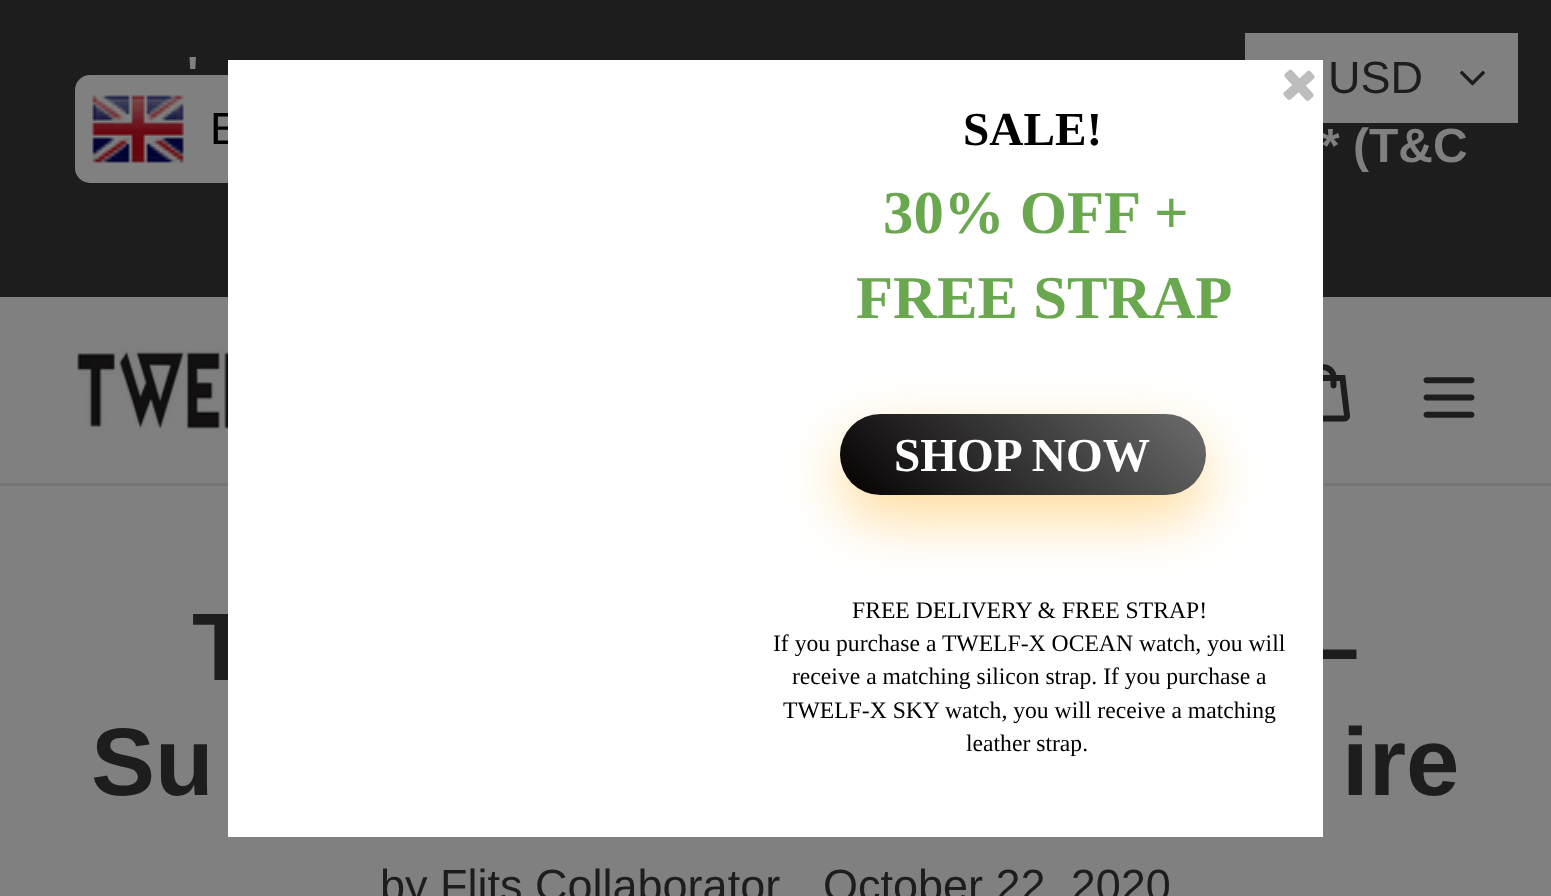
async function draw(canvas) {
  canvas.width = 1551;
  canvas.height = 896;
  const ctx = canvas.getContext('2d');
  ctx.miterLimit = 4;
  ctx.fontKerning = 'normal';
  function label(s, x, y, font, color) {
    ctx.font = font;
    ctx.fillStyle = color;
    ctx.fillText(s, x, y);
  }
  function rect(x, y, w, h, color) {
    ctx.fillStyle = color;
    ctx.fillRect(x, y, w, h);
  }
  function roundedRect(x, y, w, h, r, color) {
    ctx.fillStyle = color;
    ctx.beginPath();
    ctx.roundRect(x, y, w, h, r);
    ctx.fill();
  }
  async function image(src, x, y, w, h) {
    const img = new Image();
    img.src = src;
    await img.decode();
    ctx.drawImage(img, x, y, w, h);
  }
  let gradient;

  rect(0, 0, 1551, 896, '#808080');
  rect(0, 0, 1551, 297, '#1d1d1d');
  label('\'', 187, 90, 'bold 48px Liberation Sans', '#808080');
  label('* (T&C', 1321, 162, 'bold 48px Liberation Sans', '#808080');
  rect(0, 483, 1551, 3, '#767676');
  await image('assets/img1.png', 77, 349, 151, 81);
  await image('assets/img2.png', 1323, 364, 27, 58);
  await image('assets/img3.png', 1423, 377, 52, 41);
  rect(1245, 33, 273, 90, '#808080');
  label('USD', 1328, 93, '45px Liberation Sans', '#1d1d1d');
  await image('assets/img4.png', 1460, 70, 25, 16);
  roundedRect(75, 75, 540, 108, 15, '#808080');
  await image('assets/img5.png', 92, 95, 92, 68);
  label('E', 210, 144, '45px Liberation Sans', '#000');
  label('T', 192, 680, 'bold 96px Liberation Sans', '#1d1d1d');
  label('–', 1306, 680, 'bold 96px Liberation Sans', '#1d1d1d');
  rect(228, 60, 1095, 777, '#fff');
  await image('assets/img6.png', 1283, 69, 32, 32);
  label('SALE!', 963, 145, 'bold 47.25px Liberation Serif', '#000');
  label('30% OFF +', 883, 233, 'bold 60.75px Liberation Serif', '#6aa84f');
  label('FREE STRAP', 856, 318, 'bold 60.75px Liberation Serif', '#6aa84f');
  ctx.fillStyle = '#ffa50061';
  ctx.filter = 'blur(28px)';
  ctx.beginPath();
  ctx.roundRect(840, 435, 366, 84, 42);
  ctx.fill();
  ctx.filter = 'none';
  gradient = ctx.createLinearGradient(911, 566, 1134, 343);
  gradient.addColorStop(0, '#030000');
  gradient.addColorStop(0.94, '#666');
  ctx.fillStyle = gradient;
  ctx.beginPath();
  ctx.roundRect(840, 414, 366, 81, 40.5);
  ctx.fill();
  label('SHOP NOW', 894, 471, 'bold 47.25px Liberation Serif', '#fff');
  label('FREE DELIVERY & FREE STRAP!', 852, 618, '23.65px Liberation Serif', '#000');
  label('If you purchase a TWELF-X OCEAN watch, you will', 773, 651, '23.65px Liberation Serif', '#000');
  label('receive a matching silicon strap. If you purchase a', 792, 684, '23.65px Liberation Serif', '#000');
  label('TWELF-X SKY watch, you will receive a matching', 783, 718, '23.65px Liberation Serif', '#000');
  label('leather strap.', 966, 751, '23.65px Liberation Serif', '#000');
  label('Su', 91, 795, 'bold 96px Liberation Sans', '#1d1d1d');
  label('ire', 1342, 795, 'bold 96px Liberation Sans', '#1d1d1d');
  label('by Flits Collaborator', 380, 901, '45px Liberation Sans', '#1d1d1d');
  label('October 22, 2020', 823, 901, '45px Liberation Sans', '#1d1d1d');
}

draw(document.querySelector('canvas'));
